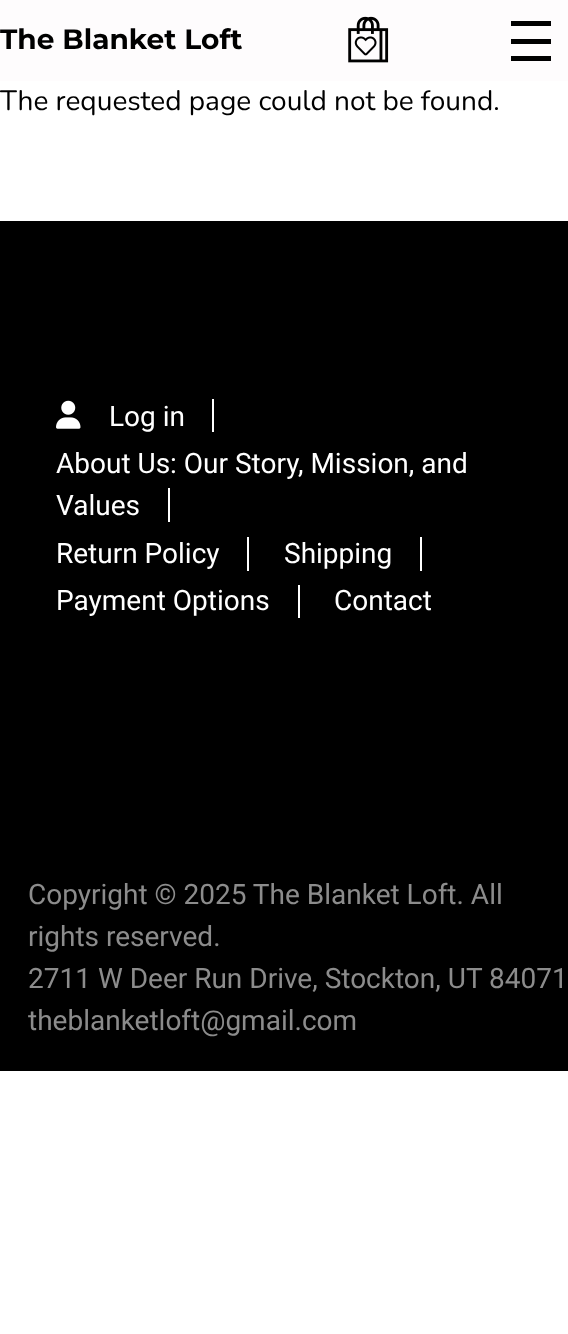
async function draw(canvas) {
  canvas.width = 568;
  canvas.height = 1334;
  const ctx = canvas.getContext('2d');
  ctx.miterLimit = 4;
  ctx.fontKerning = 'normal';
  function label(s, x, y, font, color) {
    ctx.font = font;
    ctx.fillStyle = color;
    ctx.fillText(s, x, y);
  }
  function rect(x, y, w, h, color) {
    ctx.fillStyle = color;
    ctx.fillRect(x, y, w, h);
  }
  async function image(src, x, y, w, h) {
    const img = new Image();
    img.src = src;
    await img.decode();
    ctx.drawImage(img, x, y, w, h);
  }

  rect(0, 0, 568, 1334, '#fff');
  rect(0, 0, 568, 81, '#fefcfd');
  label('The Blanket Loft', 0, 49, 'bold 28px Montserrat', '#000');
  await image('assets/img1.png', 348, 16, 41, 47);
  rect(511, 21, 40, 5, '#000');
  rect(511, 39, 40, 5, '#000');
  rect(511, 56, 40, 5, '#000');
  label('The requested page could not be found.', 0, 110, '28px Nunito', '#000');
  rect(0, 221, 568, 850, '#000');
  await image('assets/img2.png', 56, 400, 25, 29);
  label('Log in', 109, 426, '28px Roboto', '#fff');
  rect(212, 399, 2, 33, '#fff');
  label('About Us: Our Story, Mission, and', 56, 473, '28px Roboto', '#fff');
  label('Values', 56, 515, '28px Roboto', '#fff');
  rect(168, 488, 2, 34, '#fff');
  label('Return Policy', 56, 563, '28px Roboto', '#fff');
  rect(247, 537, 2, 34, '#fff');
  label('Shipping', 284, 563, '28px Roboto', '#fff');
  rect(420, 537, 2, 34, '#fff');
  label('Payment Options', 56, 610, '28px Roboto', '#fff');
  rect(298, 585, 2, 33, '#fff');
  label('Contact', 334, 610, '28px Roboto', '#fff');
  label('Copyright © 2025 The Blanket Loft. All', 28, 904, '28px Roboto', '#8c8c8c');
  label('rights reserved.', 28, 946, '28px Roboto', '#8c8c8c');
  label('2711 W Deer Run Drive, Stockton, UT 84071', 28, 988, '28px Roboto', '#8c8c8c');
  label('theblanketloft@gmail.com', 28, 1030, '28px Roboto', '#8c8c8c');
}

draw(document.querySelector('canvas'));
